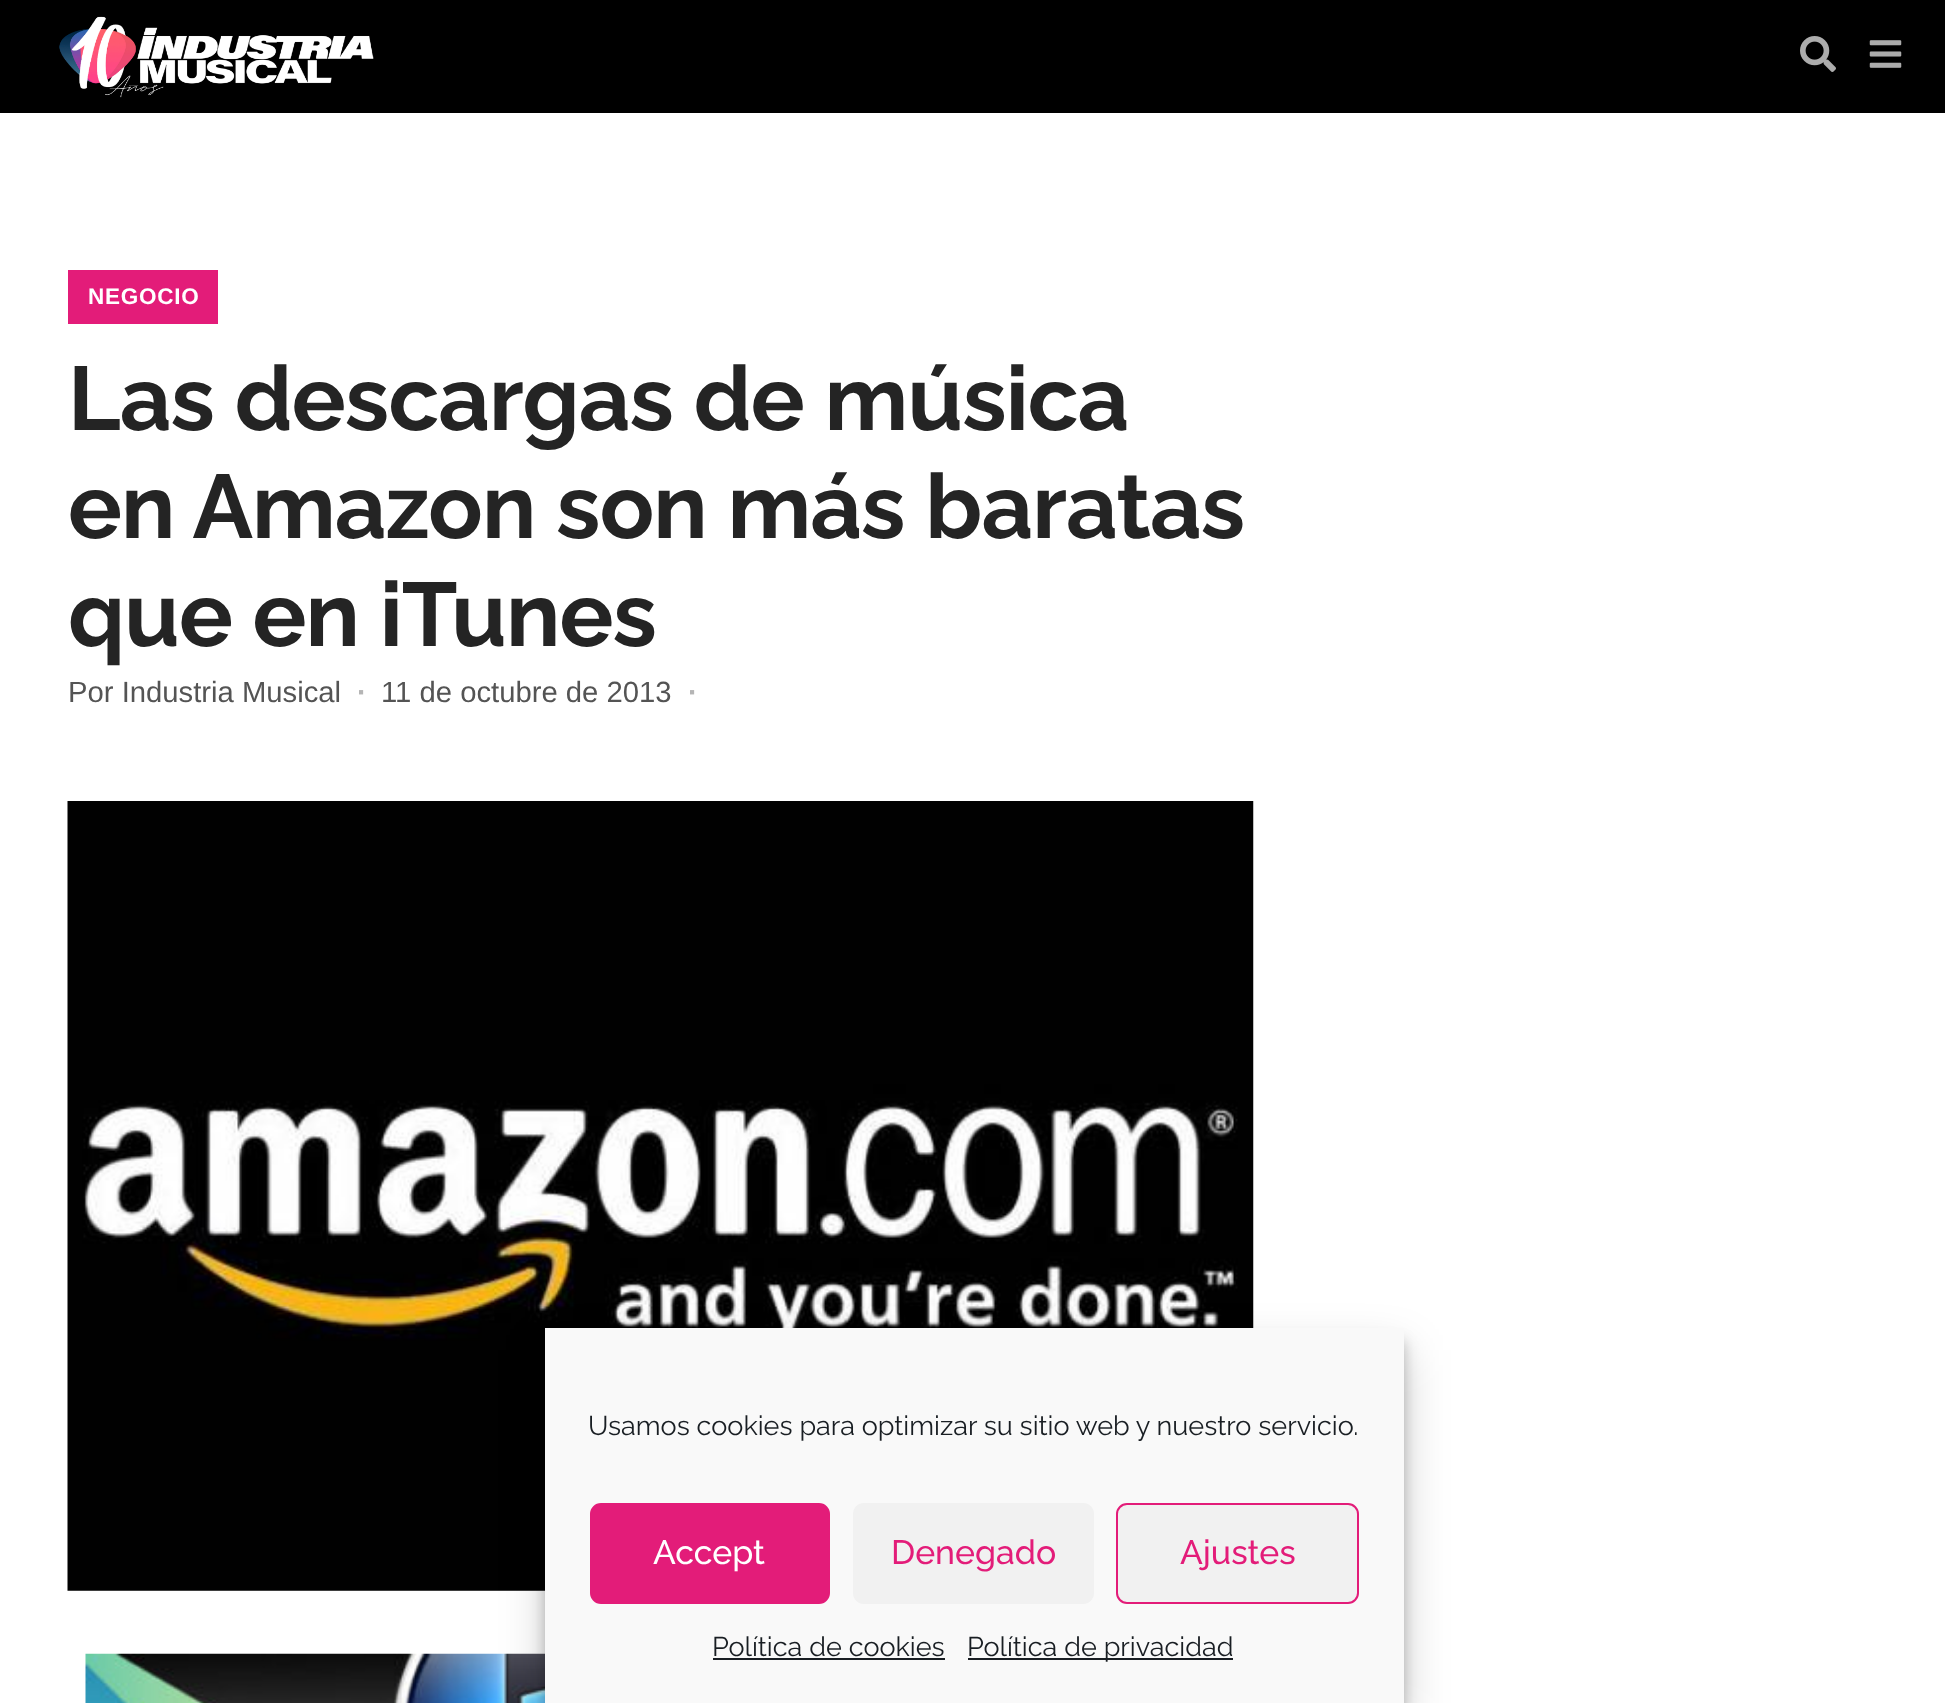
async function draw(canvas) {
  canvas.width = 1945;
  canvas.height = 1703;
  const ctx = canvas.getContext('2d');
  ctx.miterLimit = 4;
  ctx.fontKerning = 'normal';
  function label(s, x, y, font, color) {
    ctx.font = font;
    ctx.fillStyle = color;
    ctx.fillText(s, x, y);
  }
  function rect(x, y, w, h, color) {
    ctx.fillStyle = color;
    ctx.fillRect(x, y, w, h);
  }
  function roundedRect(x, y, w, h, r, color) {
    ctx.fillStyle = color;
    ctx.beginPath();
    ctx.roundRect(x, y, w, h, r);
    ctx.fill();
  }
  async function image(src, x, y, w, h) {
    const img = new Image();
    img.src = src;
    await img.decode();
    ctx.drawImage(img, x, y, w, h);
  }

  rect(0, 0, 1945, 1703, '#fff');
  rect(0, 0, 1945, 113, '#000');
  await image('assets/img1.png', 59, 16, 315, 82);
  await image('assets/img2.png', 1800, 36, 36, 36);
  await image('assets/img3.png', 1869, 40, 33, 28);
  rect(68, 270, 150, 54, '#e31c79');
  ctx.letterSpacing = '0.75px';
  label('NEGOCIO', 88, 304, 'bold 22.5px Liberation Sans', '#fff');
  ctx.letterSpacing = '-0.9px';
  label('Las descargas de música', 68, 430, 'bold 90px Raleway', '#242424');
  label('en Amazon son más baratas', 68, 538, 'bold 90px Raleway', '#242424');
  label('que en iTunes', 68, 646, 'bold 90px Raleway', '#242424');
  ctx.letterSpacing = '0px';
  label('Por Industria Musical', 68, 702, '29.25px Liberation Sans', '#545454');
  label('·', 357, 702, 'bold 29.25px Liberation Sans', '#b5b5b5');
  label('11 de octubre de 2013', 381, 702, '29.25px Liberation Sans', '#545454');
  label('·', 688, 702, 'bold 29.25px Liberation Sans', '#b5b5b5');
  await image('assets/img4.png', 67, 801, 1187, 790);
  await image('assets/img5.png', 85, 1653, 460, 50);
  ctx.fillStyle = '#0000003b';
  ctx.filter = 'blur(7px)';
  ctx.beginPath();
  ctx.rect(545, 1341, 859, 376);
  ctx.fill();
  ctx.filter = 'none';
  ctx.fillStyle = '#00000030';
  ctx.filter = 'blur(22.5px)';
  ctx.beginPath();
  ctx.rect(545, 1350, 859, 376);
  ctx.fill();
  ctx.filter = 'none';
  rect(545, 1328, 859, 375, '#f9f9f9');
  label('Usamos cookies para optimizar su sitio web y nuestro servicio.', 588, 1435, '27px Raleway', '#191e23');
  ctx.fillStyle = '#e31c79';
  ctx.beginPath();
  ctx.roundRect(591, 1504, 238, 99, 10);
  ctx.fill();
  ctx.strokeStyle = '#e31c79';
  ctx.lineWidth = 2;
  ctx.stroke();
  label('Accept', 653, 1564, '500 33.75px Raleway', '#fff');
  roundedRect(853, 1503, 241, 101, 11, '#f1f1f1');
  label('Denegado', 891, 1564, '500 33.75px Raleway', '#e31c79');
  ctx.fillStyle = '#f1f1f1';
  ctx.beginPath();
  ctx.roundRect(1117, 1504, 241, 99, 10);
  ctx.fill();
  ctx.stroke();
  label('Ajustes', 1180, 1564, '500 33.75px Raleway', '#e31c79');
  label('Política de cookies', 712, 1656, '27px Raleway', '#191e23');
  rect(713, 1658, 232, 2, '#191e23');
  rect(968, 1658, 265, 2, '#191e23');
  label('Política de privacidad', 967, 1656, '27px Raleway', '#191e23');
}

draw(document.querySelector('canvas'));
